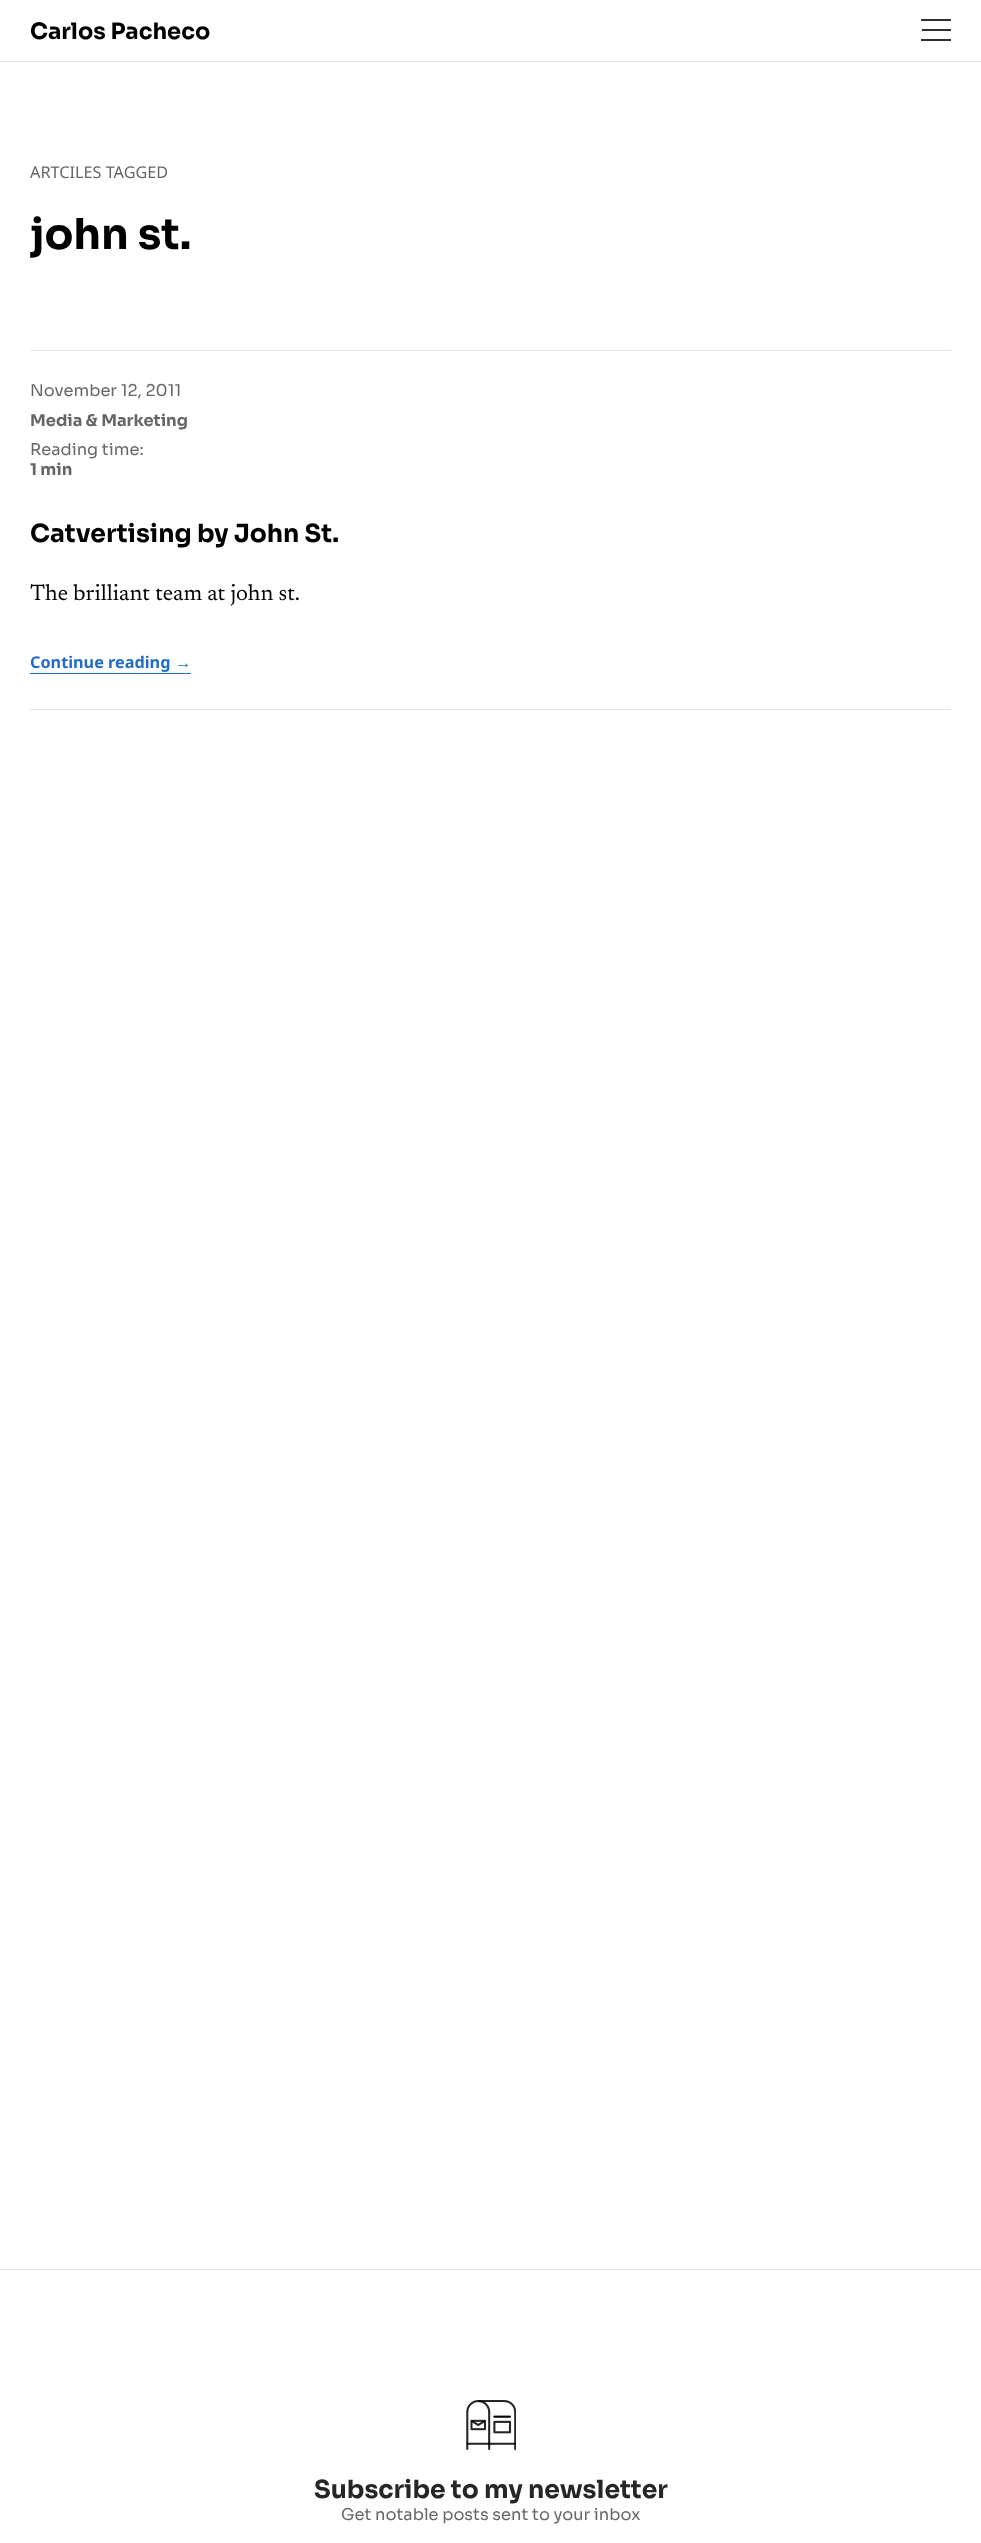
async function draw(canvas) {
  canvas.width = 981;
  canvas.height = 2543;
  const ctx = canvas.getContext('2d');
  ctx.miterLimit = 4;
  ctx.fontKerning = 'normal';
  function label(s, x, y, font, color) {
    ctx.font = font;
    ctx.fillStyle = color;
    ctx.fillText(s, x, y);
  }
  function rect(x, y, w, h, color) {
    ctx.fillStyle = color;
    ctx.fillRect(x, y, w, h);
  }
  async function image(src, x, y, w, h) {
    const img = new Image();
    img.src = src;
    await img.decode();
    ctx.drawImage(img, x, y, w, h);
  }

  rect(0, 0, 981, 2543, '#fff');
  rect(0, 61, 981, 1, '#dfe3e9');
  label('Carlos Pacheco', 30, 39, 'bold 22.5px Sora', '#000');
  rect(921, 19, 30, 2, '#2f2f2f');
  rect(922, 29, 29, 2, '#2f2f2f');
  rect(921, 39, 30, 2, '#2f2f2f');
  label('ARTCILES TAGGED', 30, 178, '16.25px Noto Sans', '#666');
  label('john st.', 30, 249, 'bold 42.5px Sora', '#000');
  rect(30, 350, 921, 1, '#dfe3e9');
  rect(30, 709, 921, 1, '#dfe3e9');
  label('November 12, 2011', 30, 396, '16.25px Sora', '#666');
  label('Media & Marketing', 30, 426, 'bold 16.25px Sora', '#666');
  label('Reading time:', 30, 455, '16.25px Sora', '#666');
  label('1 min', 30, 475, 'bold 16.25px Sora', '#666');
  label('Catvertising by John St.', 30, 542, 'bold 25px Sora', '#000');
  label('The brilliant team at john st.', 30, 600, '22.5px Newsreader', '#000');
  label('Continue reading', 30, 668, 'bold 16.25px Noto Sans', '#236cc6');
  label('→', 175, 668, 'bold 16.25px Liberation Sans', '#236cc6');
  rect(30, 673, 161, 1, '#236cc6');
  rect(0, 2269, 981, 1, '#dfe3e9');
  await image('assets/img1.png', 466, 2400, 50, 50);
  label('Subscribe to my newsletter', 314, 2498, 'bold 25px Sora', '#262626');
  label('Get notable posts sent to your inbox', 341, 2520, '16.25px Sora', '#666');
}

draw(document.querySelector('canvas'));
